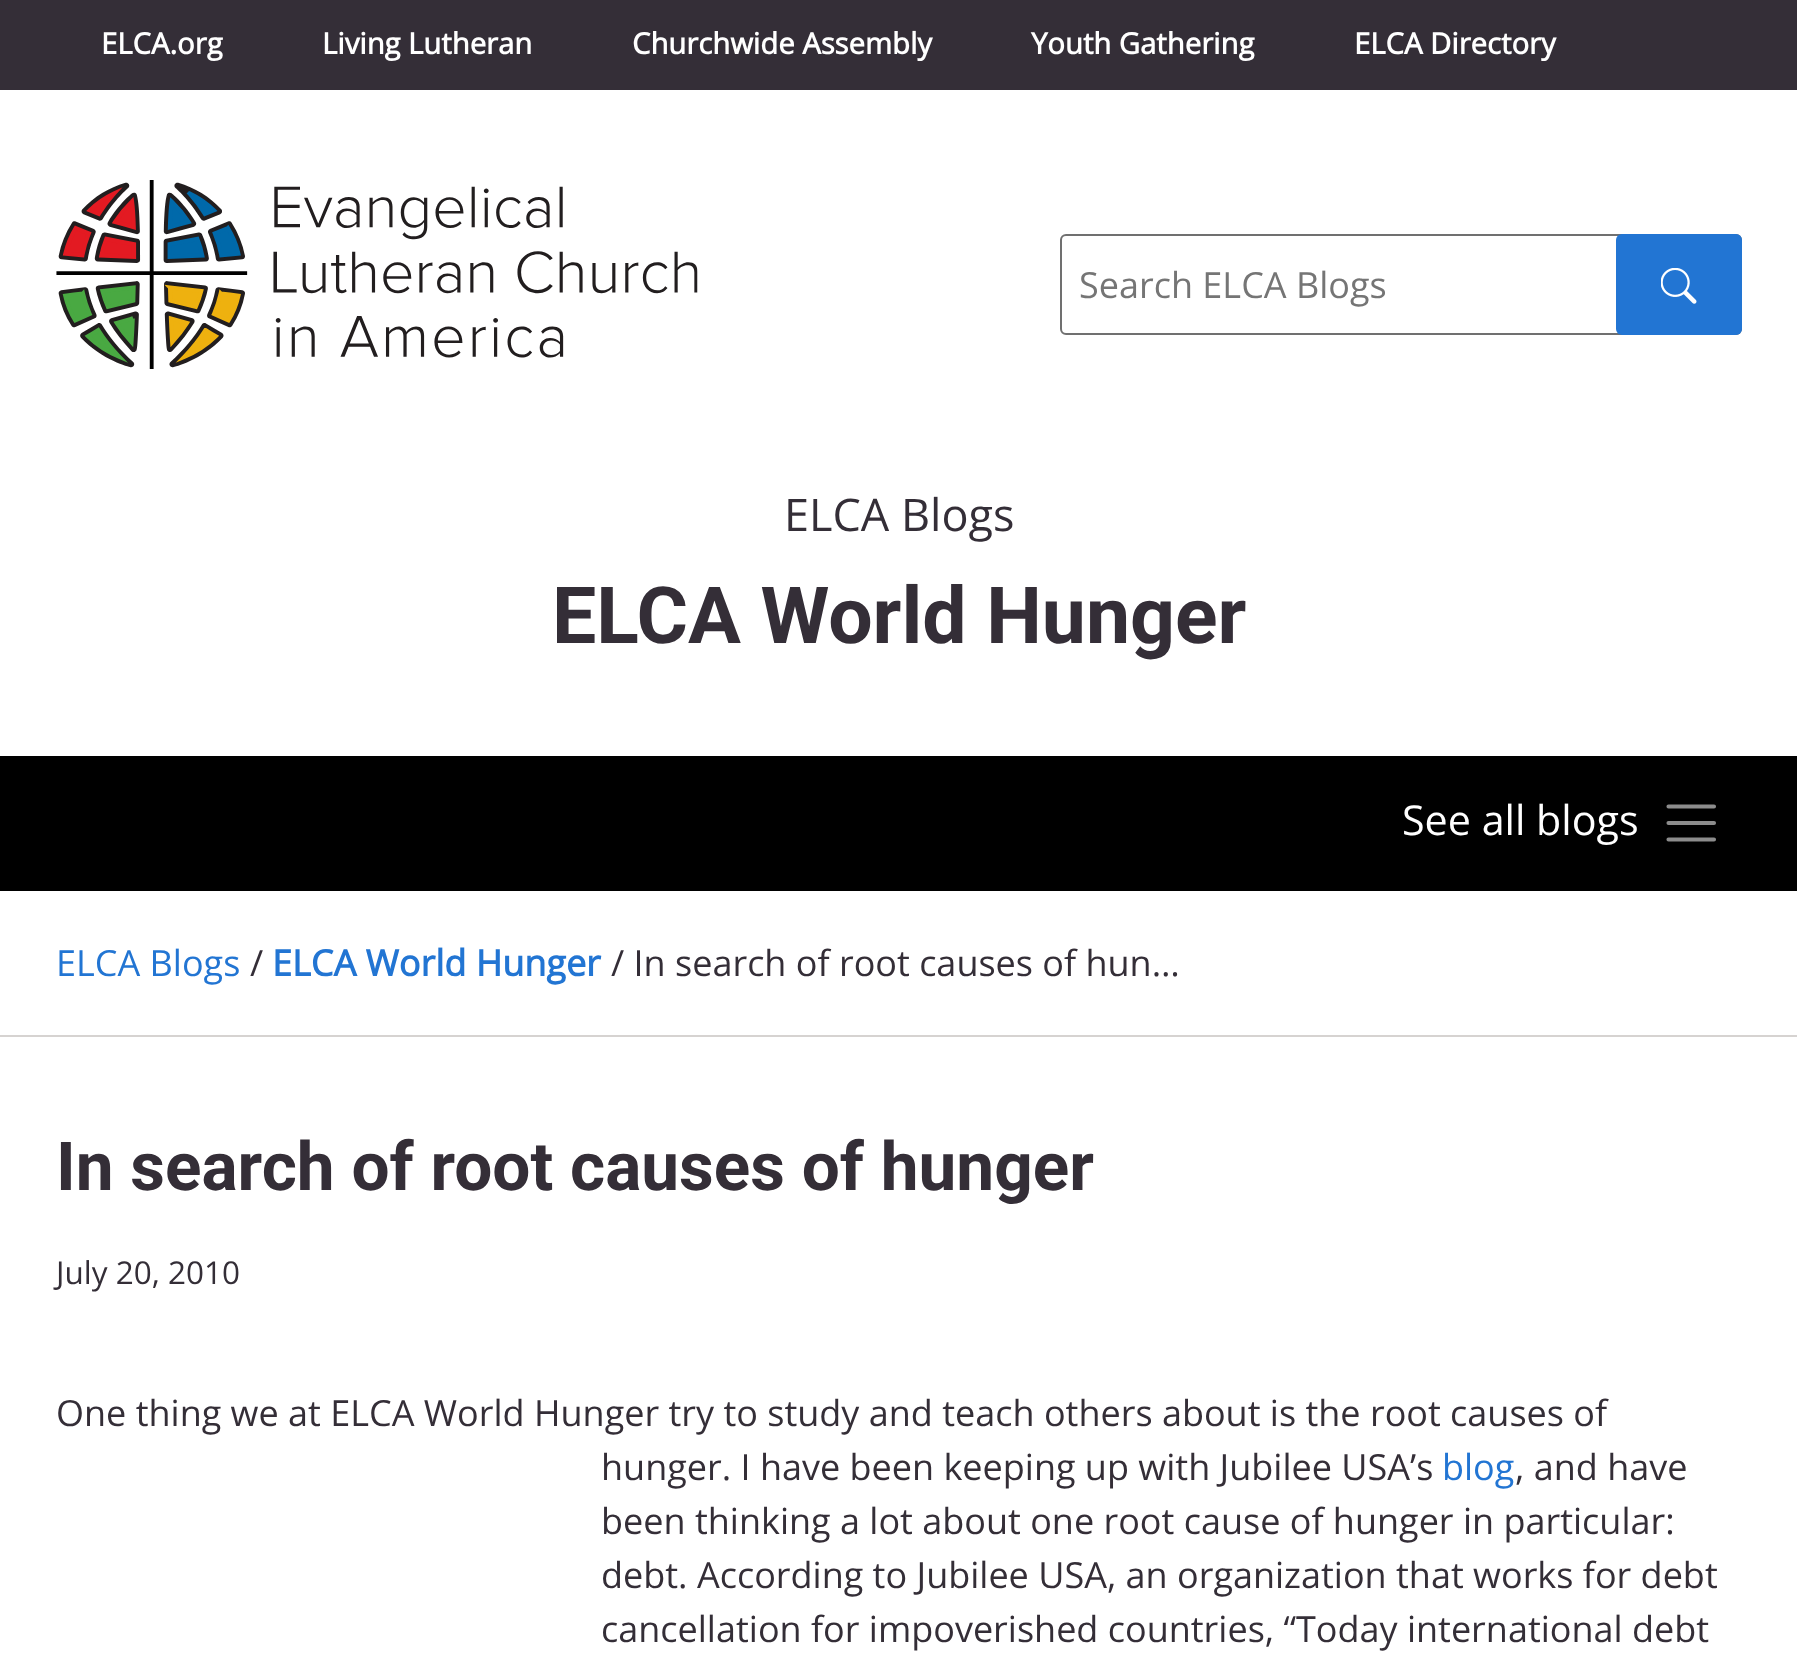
async function draw(canvas) {
  canvas.width = 1797;
  canvas.height = 1671;
  const ctx = canvas.getContext('2d');
  ctx.miterLimit = 4;
  ctx.fontKerning = 'normal';
  function label(s, x, y, font, color) {
    ctx.font = font;
    ctx.fillStyle = color;
    ctx.fillText(s, x, y);
  }
  function rect(x, y, w, h, color) {
    ctx.fillStyle = color;
    ctx.fillRect(x, y, w, h);
  }
  function roundedRect(x, y, w, h, r, color) {
    ctx.fillStyle = color;
    ctx.beginPath();
    ctx.roundRect(x, y, w, h, r);
    ctx.fill();
  }
  async function image(src, x, y, w, h) {
    const img = new Image();
    img.src = src;
    await img.decode();
    ctx.drawImage(img, x, y, w, h);
  }
  let path;

  rect(0, 0, 1797, 1671, '#fff');
  rect(0, 0, 1797, 90, '#342e37');
  label('ELCA.org', 101, 54, 'bold 29.25px Open Sans', '#fff');
  label('Living Lutheran', 322, 54, 'bold 29.25px Open Sans', '#fff');
  label('Churchwide Assembly', 632, 54, 'bold 29.25px Open Sans', '#fff');
  label('Youth Gathering', 1031, 54, 'bold 29.25px Open Sans', '#fff');
  label('ELCA Directory', 1354, 54, 'bold 29.25px Open Sans', '#fff');
  await image('assets/img1.png', 56, 180, 642, 189);
  ctx.beginPath();
  ctx.roundRect(1061, 235, 680, 99, 5);
  ctx.strokeStyle = '#707070';
  ctx.lineWidth = 2;
  ctx.stroke();
  label('Search ELCA Blogs', 1079, 298, '36px Open Sans', '#757575');
  roundedRect(1616, 234, 126, 101, 6, '#2275d3');
  await image('assets/img2.png', 1661, 268, 36, 36);
  label('ELCA Blogs', 784, 531, '45px Open Sans', '#342e37');
  label('ELCA World Hunger', 552, 643, 'bold 78.75px Roboto', '#342e37');
  rect(0, 756, 1797, 135, '#000');
  label('See all blogs', 1402, 835, '41.25px Open Sans', '#fff');
  path = new Path2D('M1668.5 806.5H1714M1668.5 823H1714M1668.5 839.5H1714');
  ctx.strokeStyle = '#8c8c8c';
  ctx.lineWidth = 4.1;
  ctx.lineCap = 'round';
  ctx.stroke(path);
  rect(0, 1035, 1797, 2, '#d6d3d1');
  label('ELCA Blogs', 56, 976, '36px Open Sans', '#2275d3');
  label('/', 250, 976, '36px Open Sans', '#342e37');
  label('ELCA World Hunger', 272, 976, 'bold 36px Open Sans', '#2275d3');
  label('/ In search of root causes of hun…', 611, 976, '36px Open Sans', '#342e37');
  label('In search of root causes of hunger', 56, 1190, 'bold 67.5px Roboto', '#342e37');
  label('July 20, 2010', 56, 1284, '31.5px Open Sans', '#342e37');
  label('One thing we at ELCA World Hunger try to study and teach others about is the root causes of', 56, 1426, '36px Open Sans', '#342e37');
  label('hunger. I have been keeping up with Jubilee USA’s', 601, 1480, '36px Open Sans', '#342e37');
  label('blog', 1442, 1480, '36px Open Sans', '#2275d3');
  label(', and have', 1515, 1480, '36px Open Sans', '#342e37');
  label('been thinking a lot about one root cause of hunger in particular:', 601, 1534, '36px Open Sans', '#342e37');
  label('debt. According to Jubilee USA, an organization that works for debt', 601, 1588, '36px Open Sans', '#342e37');
  label('cancellation for impoverished countries, “Today international debt', 601, 1642, '36px Open Sans', '#342e37');
}

draw(document.querySelector('canvas'));
